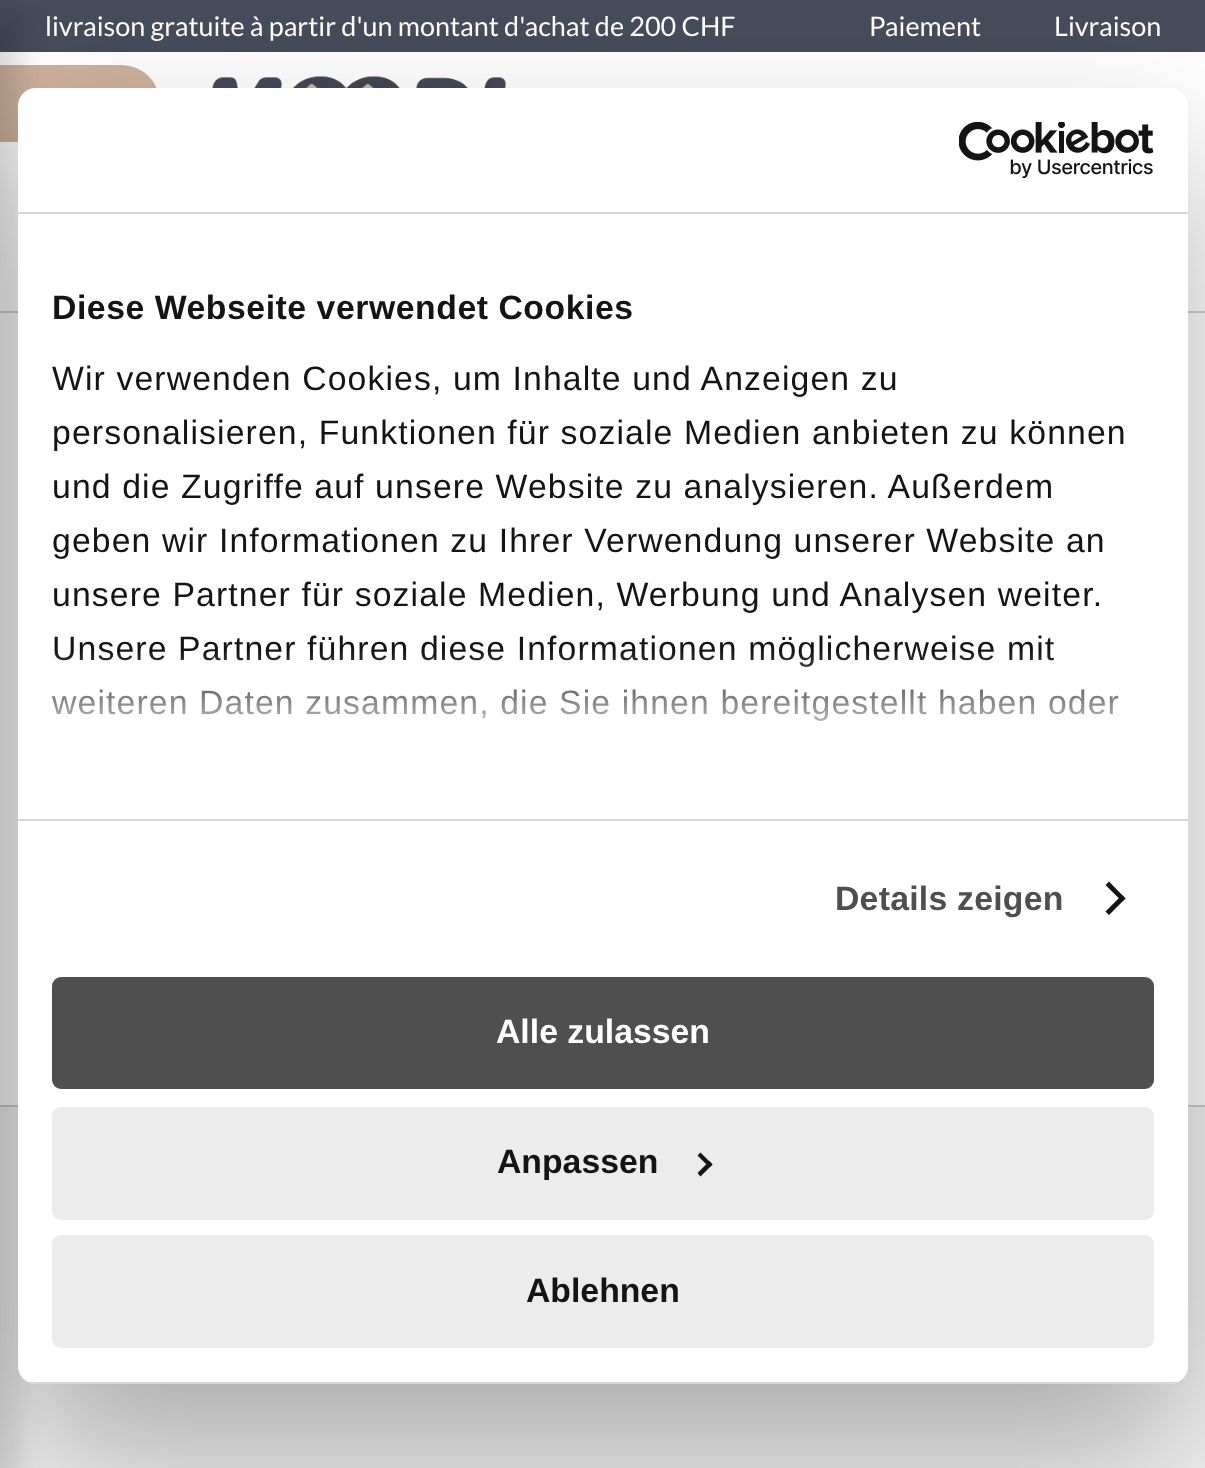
async function draw(canvas) {
  canvas.width = 1205;
  canvas.height = 1468;
  const ctx = canvas.getContext('2d');
  ctx.miterLimit = 4;
  ctx.fontKerning = 'normal';
  function label(s, x, y, font, color) {
    ctx.font = font;
    ctx.fillStyle = color;
    ctx.fillText(s, x, y);
  }
  function rect(x, y, w, h, color) {
    ctx.fillStyle = color;
    ctx.fillRect(x, y, w, h);
  }
  function roundedRect(x, y, w, h, r, color) {
    ctx.fillStyle = color;
    ctx.beginPath();
    ctx.roundRect(x, y, w, h, r);
    ctx.fill();
  }
  async function image(src, x, y, w, h) {
    const img = new Image();
    img.src = src;
    await img.decode();
    ctx.drawImage(img, x, y, w, h);
  }
  let gradient, path;

  rect(0, 0, 1205, 1468, '#fff');
  rect(0, 311, 1205, 2, '#d1d1d1');
  ctx.save();
  ctx.beginPath();
  ctx.rect(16, 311, 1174, 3);
  ctx.clip();
  ctx.fillStyle = '#00000033';
  ctx.filter = 'blur(14.5px)';
  ctx.beginPath();
  ctx.rect(29, 61, 1148, 252);
  ctx.fill();
  ctx.filter = 'none';
  ctx.restore();
  rect(0, 0, 1205, 52, '#464c5a');
  ctx.fillStyle = '#ceb29c';
  ctx.beginPath();
  ctx.roundRect(0, 65, 160, 77, [0, 38.5, 38.5, 0]);
  ctx.fill();
  rect(0, 1107, 1205, 361, '#f4f4f4');
  rect(0, 1105, 1205, 2, '#cecece');
  ctx.fillStyle = '#00000026';
  ctx.filter = 'blur(14.5px)';
  ctx.beginPath();
  ctx.rect(-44, 14, 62, 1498);
  ctx.fill();
  ctx.filter = 'none';
  label('livraison gratuite à partir d\'un montant d\'achat de 200 CHF', 45, 36, '27px Lato', '#fff');
  label('Paiement', 869, 36, '27px Lato', '#fff');
  label('Livraison', 1054, 36, '27px Lato', '#fff');
  await image('assets/img1.png', 212, 76, 295, 12);
  ctx.fillStyle = '#0000004d';
  ctx.filter = 'blur(76.5px)';
  ctx.beginPath();
  ctx.roundRect(18, 160, 1170, 1296, 18);
  ctx.fill();
  ctx.filter = 'none';
  roundedRect(18, 88, 1170, 1296, 18, '#fff');
  rect(18, 212, 1170, 2, '#d6d6d6');
  await image('assets/img2.png', 959, 122, 195, 56);
  rect(18, 819, 1170, 2, '#d6d6d6');
  ctx.letterSpacing = '0.55px';
  label('Diese Webseite verwendet Cookies', 52, 319, 'bold 33.75px Liberation Sans', '#141414');
  ctx.letterSpacing = '1.12px';
  label('Wir verwenden Cookies, um Inhalte und Anzeigen zu', 52, 390, '33.75px Liberation Sans', '#141414');
  label('personalisieren, Funktionen für soziale Medien anbieten zu können', 52, 444, '33.75px Liberation Sans', '#141414');
  label('und die Zugriffe auf unsere Website zu analysieren. Außerdem', 52, 498, '33.75px Liberation Sans', '#141414');
  label('geben wir Informationen zu Ihrer Verwendung unserer Website an', 52, 552, '33.75px Liberation Sans', '#141414');
  label('unsere Partner für soziale Medien, Werbung und Analysen weiter.', 52, 606, '33.75px Liberation Sans', '#141414');
  label('Unsere Partner führen diese Informationen möglicherweise mit', 52, 660, '33.75px Liberation Sans', '#141414');
  label('weiteren Daten zusammen, die Sie ihnen bereitgestellt haben oder', 52, 714, '33.75px Liberation Sans', '#141414');
  gradient = ctx.createLinearGradient(588, 818, 588, 650);
  gradient.addColorStop(0, '#fff');
  gradient.addColorStop(0.5, '#ffffffcc');
  gradient.addColorStop(1, '#ffffff00');
  ctx.fillStyle = gradient;
  ctx.fillRect(51, 652, 1068, 69);
  ctx.letterSpacing = '0.25px';
  label('Details zeigen', 835, 910, 'bold 33.75px Liberation Sans', '#4f4f4f');
  ctx.fillStyle = '#141414';
  path = new Path2D('M1109 881.5L1125.5 898.5L1122 901.5L1105.5 885Z');
  ctx.fill(path);
  path = new Path2D('M1122 895L1125.5 898.5L1109 915L1105.5 911.5Z');
  ctx.fill(path);
  ctx.save();
  ctx.beginPath();
  ctx.roundRect(18, 88, 1170, 1296, 18);
  ctx.clip();
  rect(28, 1382, 1150, 2, '#d6d6d6');
  ctx.restore();
  ctx.fillStyle = '#4f4f4f';
  ctx.beginPath();
  ctx.roundRect(54.5, 979.5, 1097, 107, 6.5);
  ctx.fill();
  ctx.strokeStyle = '#4f4f4f';
  ctx.lineWidth = 5;
  ctx.stroke();
  ctx.letterSpacing = '0px';
  label('Alle zulassen', 496, 1043, 'bold 33.75px Liberation Sans', '#fff');
  ctx.fillStyle = '#ececec';
  ctx.beginPath();
  ctx.roundRect(54.5, 1109.5, 1097, 108, 6.5);
  ctx.fill();
  ctx.strokeStyle = '#ececec';
  ctx.stroke();
  label('Anpassen', 497, 1173, 'bold 33.75px Liberation Sans', '#141414');
  path = new Path2D('M700.5 1152.5L712.5 1164.5L709.5 1167.5L697.5 1155.5Z');
  ctx.fill(path);
  path = new Path2D('M709.5 1161L712.5 1164.5L700.5 1176.5L697.5 1173Z');
  ctx.fill(path);
  ctx.fillStyle = '#ececec';
  ctx.beginPath();
  ctx.roundRect(54.5, 1237.5, 1097, 108, 6.5);
  ctx.fill();
  ctx.stroke();
  label('Ablehnen', 526, 1302, 'bold 33.75px Liberation Sans', '#141414');
}

draw(document.querySelector('canvas'));
